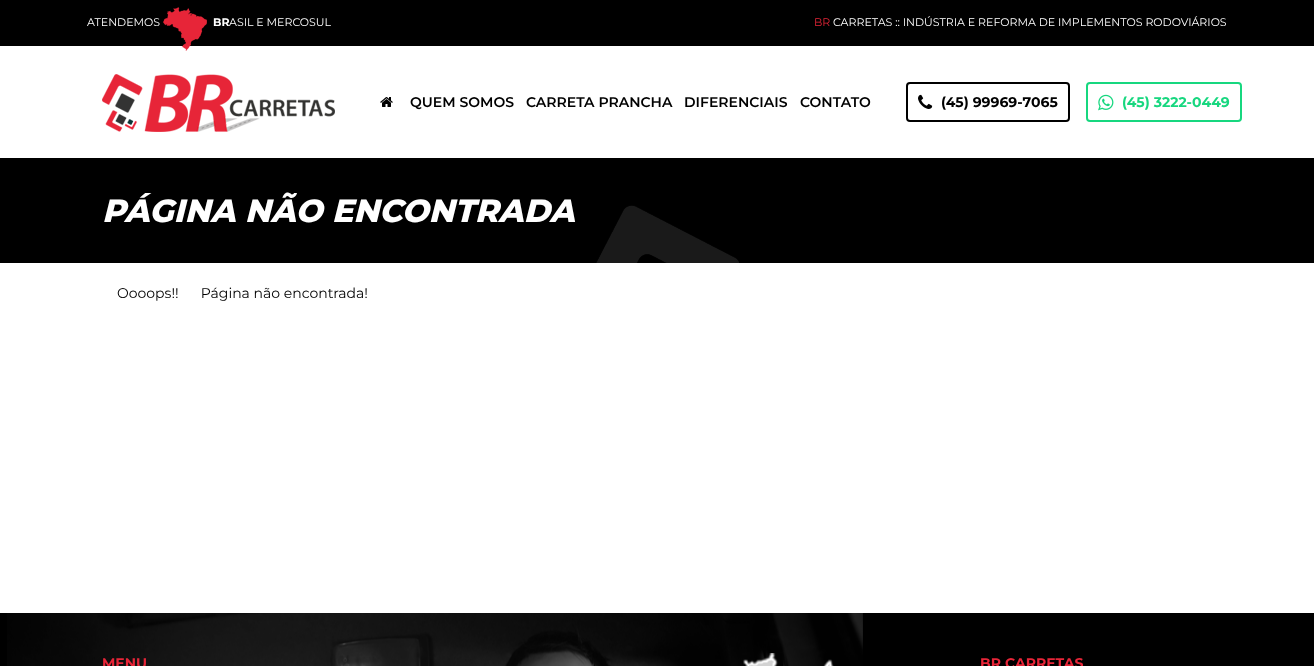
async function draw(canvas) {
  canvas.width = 1314;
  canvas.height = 666;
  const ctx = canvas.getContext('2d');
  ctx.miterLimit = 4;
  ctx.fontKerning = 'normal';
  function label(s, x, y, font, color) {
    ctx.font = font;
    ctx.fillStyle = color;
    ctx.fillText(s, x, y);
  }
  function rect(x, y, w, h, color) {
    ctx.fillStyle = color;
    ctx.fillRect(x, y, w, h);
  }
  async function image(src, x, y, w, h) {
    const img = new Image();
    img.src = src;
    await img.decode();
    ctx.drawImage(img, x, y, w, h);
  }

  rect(0, 0, 1314, 666, '#fff');
  rect(0, 0, 1314, 46, '#000');
  label('ATENDEMOS', 87, 26, '11px Montserrat', '#fff');
  await image('assets/img1.png', 163, 7, 44, 44);
  label('BR', 213, 26, 'bold 11px Montserrat', '#fff');
  label('ASIL E MERCOSUL', 229, 26, '11px Montserrat', '#fff');
  label('BR', 814, 26, '11px Montserrat', '#e72538');
  label('CARRETAS :: INDÚSTRIA E REFORMA DE IMPLEMENTOS RODOVIÁRIOS', 833, 26, '11px Montserrat', '#fff');
  await image('assets/img2.png', 102, 74, 233, 58);
  await image('assets/img3.png', 380, 97, 13, 10);
  label('QUEM SOMOS', 410, 107, '600 14px Montserrat', '#000');
  label('CARRETA PRANCHA', 526, 107, '600 14px Montserrat', '#000');
  label('DIFERENCIAIS', 684, 107, '600 14px Montserrat', '#000');
  label('CONTATO', 800, 107, '600 14px Montserrat', '#000');
  ctx.beginPath();
  ctx.roundRect(907, 83, 162, 38, 3);
  ctx.strokeStyle = '#000';
  ctx.lineWidth = 2;
  ctx.stroke();
  await image('assets/img4.png', 918, 94, 15, 15);
  label('(45) 99969-7065', 941, 107, 'bold 14px Montserrat', '#000');
  ctx.beginPath();
  ctx.roundRect(1087, 83, 154, 38, 3);
  ctx.strokeStyle = '#17d77f';
  ctx.stroke();
  await image('assets/img5.png', 1098, 94, 16, 17);
  label('(45) 3222-0449', 1122, 107, 'bold 14px Montserrat', '#17d77f');
  rect(0, 158, 1314, 105, '#000');
  await image('assets/img6.png', 596, 205, 143, 58);
  label('PÁGINA NÃO ENCONTRADA', 102, 222, 'italic 800 32px Montserrat', '#fff');
  label('Oooops!!      Página não encontrada!', 117, 298, '14px Montserrat', '#000');
  rect(0, 613, 1314, 53, '#000');
  await image('assets/img7.png', 7, 613, 856, 53);
  label('MENU', 102, 668, 'bold 14px Montserrat', '#e72538');
  await image('assets/img8.png', 743, 653, 91, 13);
  label('BR CARRETAS', 980, 668, 'bold 14px Montserrat', '#e72538');
}

draw(document.querySelector('canvas'));
